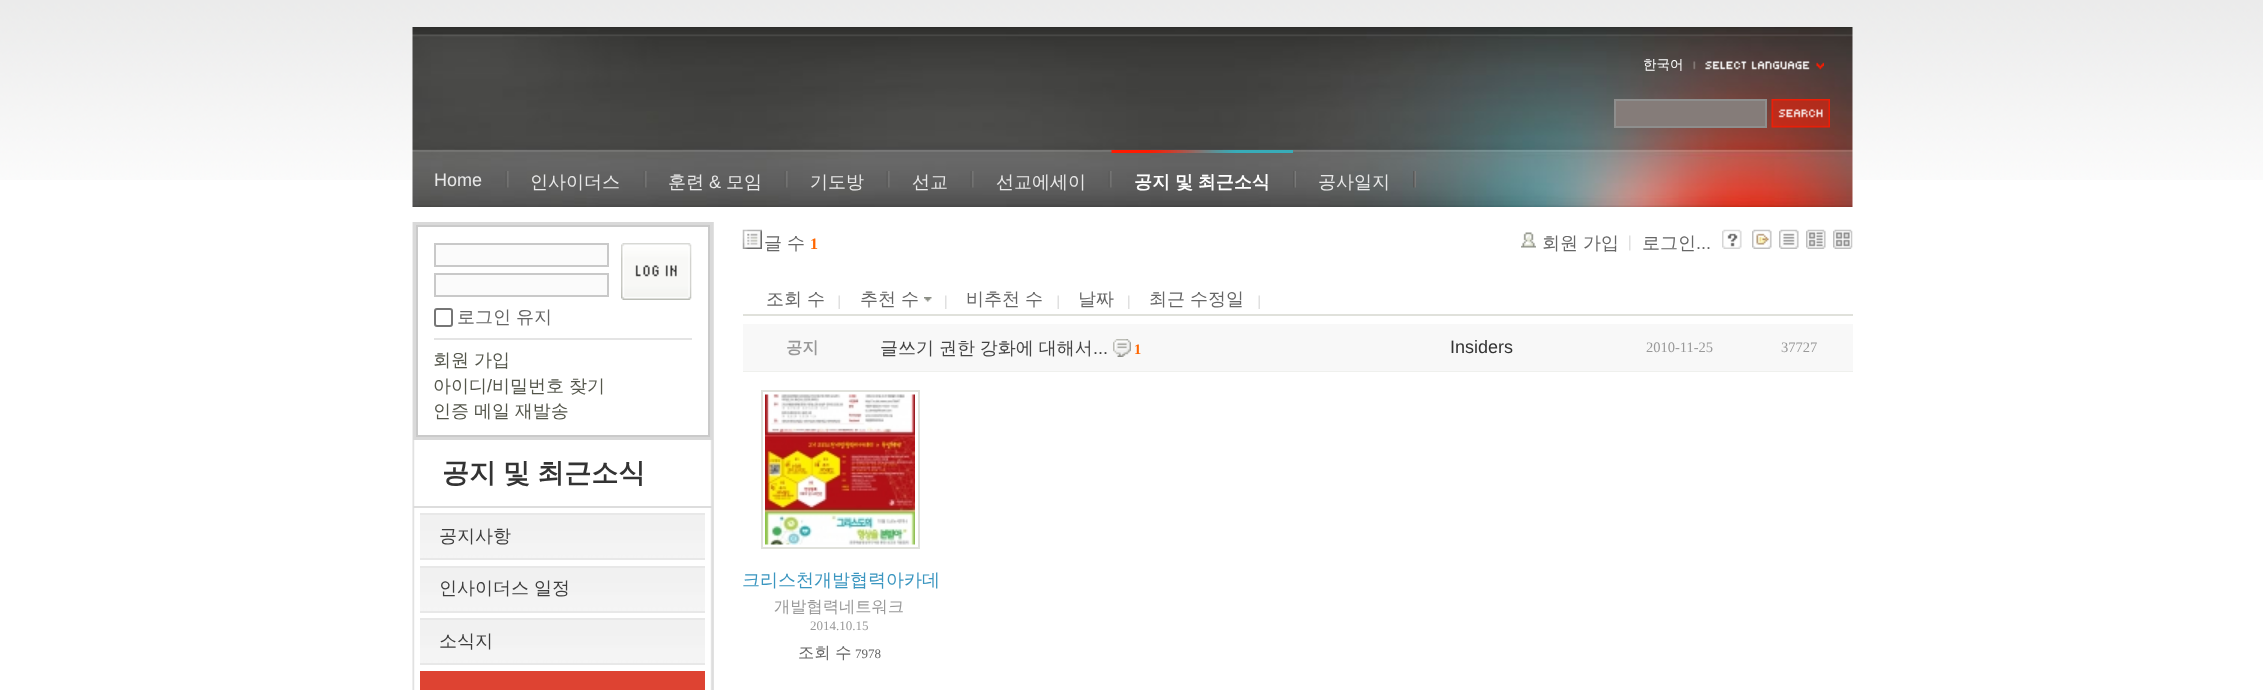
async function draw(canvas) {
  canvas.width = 2263;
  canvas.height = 690;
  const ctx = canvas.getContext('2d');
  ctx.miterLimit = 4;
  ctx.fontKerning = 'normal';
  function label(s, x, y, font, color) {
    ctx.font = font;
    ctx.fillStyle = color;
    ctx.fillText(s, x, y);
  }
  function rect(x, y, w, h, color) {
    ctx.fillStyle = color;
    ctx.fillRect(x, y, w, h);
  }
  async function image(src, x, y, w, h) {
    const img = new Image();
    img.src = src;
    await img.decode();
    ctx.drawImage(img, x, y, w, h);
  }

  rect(0, 0, 2263, 690, '#fff');
  await image('assets/img1.png', 0, 0, 2263, 180);
  await image('assets/img2.png', 412, 27, 1441, 180);
  label('한국어', 1643, 69, '500 13.5px WenQuanYi Zen Hei', '#fff');
  await image('assets/img3.png', 1693, 61, 131, 9);
  ctx.fillStyle = '#857c79';
  ctx.beginPath();
  ctx.rect(1615, 100, 151, 27);
  ctx.fill();
  ctx.strokeStyle = '#8e8e8d';
  ctx.lineWidth = 2;
  ctx.stroke();
  await image('assets/img4.png', 1771, 99, 59, 29);
  label('Home', 434, 186, '18px Liberation Sans', '#e8e8e8');
  await image('assets/img5.png', 505, 171, 4, 17);
  label('인사이더스', 530, 188, '500 18px WenQuanYi Zen Hei', '#e8e8e8');
  await image('assets/img6.png', 643, 171, 4, 17);
  label('훈련', 668, 188, '500 18px WenQuanYi Zen Hei', '#e8e8e8');
  label('&', 709, 188, '18px Liberation Sans', '#e8e8e8');
  label('모임', 726, 188, '500 18px WenQuanYi Zen Hei', '#e8e8e8');
  await image('assets/img7.png', 784, 171, 4, 17);
  label('기도방', 810, 188, '500 18px WenQuanYi Zen Hei', '#e8e8e8');
  await image('assets/img8.png', 886, 171, 4, 17);
  label('선교', 912, 188, '500 18px WenQuanYi Zen Hei', '#e8e8e8');
  await image('assets/img9.png', 970, 171, 4, 17);
  label('선교에세이', 996, 188, '500 18px WenQuanYi Zen Hei', '#e8e8e8');
  await image('assets/img10.png', 1108, 171, 4, 17);
  await image('assets/img11.png', 1111, 150, 182, 3);
  ctx.wordSpacing = '-0.5px';
  label('공지 및 최근소식', 1134, 188, 'bold 18px WenQuanYi Zen Hei', '#fff');
  await image('assets/img12.png', 1293, 171, 3, 17);
  ctx.wordSpacing = '0px';
  label('공사일지', 1318, 188, '500 18px WenQuanYi Zen Hei', '#e8e8e8');
  await image('assets/img13.png', 1413, 171, 3, 17);
  await image('assets/img14.png', 412, 222, 302, 468);
  ctx.strokeStyle = '#d9d9d9';
  ctx.lineWidth = 3;
  ctx.strokeRect(414.5, 223.5, 297, 215);
  ctx.strokeStyle = '#cacaca';
  ctx.lineWidth = 2;
  ctx.strokeRect(417, 226, 292, 210);
  await image('assets/img15.png', 621, 243, 71, 57);
  ctx.fillStyle = '#fbfbfb';
  ctx.beginPath();
  ctx.rect(435, 244, 173, 22);
  ctx.fill();
  ctx.strokeStyle = '#c9c9c9';
  ctx.stroke();
  ctx.beginPath();
  ctx.rect(435, 274, 173, 22);
  ctx.fill();
  ctx.stroke();
  ctx.beginPath();
  ctx.roundRect(435, 309, 17, 17, 2);
  ctx.strokeStyle = '#767676';
  ctx.stroke();
  ctx.wordSpacing = '-0.5px';
  label('로그인 유지', 457, 323, '500 18px WenQuanYi Zen Hei', '#666');
  rect(434, 338, 258, 2, '#e4e4e4');
  label('회원 가입', 433, 366, '500 18px WenQuanYi Zen Hei', '#54564b');
  ctx.wordSpacing = '0px';
  label('아이디', 433, 392, '500 18px WenQuanYi Zen Hei', '#54564b');
  label('/', 487, 392, '18px Liberation Sans', '#54564b');
  ctx.wordSpacing = '-0.5px';
  label('비밀번호 찾기', 492, 392, '500 18px WenQuanYi Zen Hei', '#54564b');
  label('인증 메일 재발송', 433, 417, '500 18px WenQuanYi Zen Hei', '#54564b');
  ctx.wordSpacing = '-1px';
  label('공지 및 최근소식', 442, 482, 'bold 27px WenQuanYi Zen Hei', '#333');
  rect(413, 506, 300, 2, '#ddd');
  await image('assets/img16.png', 420, 515, 285, 43);
  rect(420, 513, 285, 2, '#e8e8e8');
  rect(420, 558, 285, 2, '#e8e8e8');
  ctx.wordSpacing = '0px';
  label('공지사항', 439, 542, '500 18px WenQuanYi Zen Hei', '#3e3e3e');
  await image('assets/img17.png', 420, 568, 285, 43);
  rect(420, 566, 285, 2, '#e8e8e8');
  rect(420, 611, 285, 2, '#e8e8e8');
  ctx.wordSpacing = '-0.5px';
  label('인사이더스 일정', 439, 594, '500 18px WenQuanYi Zen Hei', '#3e3e3e');
  await image('assets/img16.png', 420, 620, 285, 43);
  rect(420, 618, 285, 2, '#e8e8e8');
  rect(420, 663, 285, 2, '#e8e8e8');
  ctx.wordSpacing = '0px';
  label('소식지', 439, 647, '500 18px WenQuanYi Zen Hei', '#3e3e3e');
  rect(420, 671, 285, 19, '#de4332');
  await image('assets/img18.png', 742, 229, 20, 20);
  ctx.wordSpacing = '-0.5px';
  label('글 수', 764, 249, '500 18px WenQuanYi Zen Hei', '#666');
  ctx.wordSpacing = '0px';
  label('1', 810, 249, 'bold 16px Liberation Serif', '#f60');
  await image('assets/img19.png', 1521, 232, 15, 16);
  ctx.wordSpacing = '-0.5px';
  label('회원 가입', 1542, 249, '500 18px WenQuanYi Zen Hei', '#666');
  await image('assets/img20.png', 1629, 235, 2, 16);
  ctx.wordSpacing = '0px';
  label('로그인', 1642, 249, '500 18px WenQuanYi Zen Hei', '#666');
  label('...', 1696, 249, '18px Liberation Sans', '#666');
  await image('assets/img21.png', 1722, 229, 20, 20);
  await image('assets/img22.png', 1752, 229, 20, 20);
  await image('assets/img23.png', 1779, 229, 20, 20);
  await image('assets/img24.png', 1806, 229, 20, 20);
  await image('assets/img25.png', 1833, 229, 20, 20);
  rect(743, 314, 1110, 2, '#e0e1db');
  ctx.wordSpacing = '-0.5px';
  label('조회 수', 766, 305, '500 18px WenQuanYi Zen Hei', '#666');
  await image('assets/img26.png', 838, 295, 2, 14);
  label('추천 수', 860, 305, '500 18px WenQuanYi Zen Hei', '#666');
  await image('assets/img27.png', 924, 297, 8, 5);
  await image('assets/img28.png', 945, 295, 2, 14);
  label('비추천 수', 966, 305, '500 18px WenQuanYi Zen Hei', '#666');
  await image('assets/img26.png', 1057, 295, 2, 14);
  ctx.wordSpacing = '0px';
  label('날짜', 1078, 305, '500 18px WenQuanYi Zen Hei', '#666');
  await image('assets/img28.png', 1128, 295, 2, 14);
  ctx.wordSpacing = '-0.5px';
  label('최근 수정일', 1149, 305, '500 18px WenQuanYi Zen Hei', '#666');
  await image('assets/img26.png', 1258, 295, 2, 14);
  rect(743, 324, 1110, 47, '#f8f8f8');
  rect(743, 371, 1110, 1, '#eff0ed');
  ctx.wordSpacing = '0px';
  label('공지', 786, 353, 'bold 16.25px WenQuanYi Zen Hei', '#999');
  ctx.wordSpacing = '-0.5px';
  label('글쓰기 권한 강화에 대해서', 880, 354, '500 18px WenQuanYi Zen Hei', '#444');
  ctx.wordSpacing = '0px';
  label('...', 1093, 354, '18px Liberation Sans', '#444');
  await image('assets/img29.png', 1113, 339, 18, 18);
  label('1', 1134, 354, 'bold 14.5px Liberation Serif', '#f60');
  label('Insiders', 1450, 353, '18px Liberation Sans', '#333');
  label('2010-11-25', 1646, 352, '14.5px Liberation Serif', '#999');
  label('37727', 1781, 352, '14.5px Liberation Serif', '#999');
  ctx.strokeStyle = '#e0e1db';
  ctx.strokeRect(762, 391, 157, 157);
  await image('assets/img30.png', 765, 394, 150, 151);
  label('크리스천개발협력아카데', 742, 586, '500 18px WenQuanYi Zen Hei', '#3b96c0');
  label('개발협력네트워크', 774, 612, '500 16.25px WenQuanYi Zen Hei', '#999');
  label('2014.10.15', 810, 630, '13px Liberation Serif', '#999');
  label('조회 수', 798, 658, '500 16.25px WenQuanYi Zen Hei', '#666');
  label('7978', 855, 658, '13px Liberation Serif', '#666');
}

draw(document.querySelector('canvas'));
